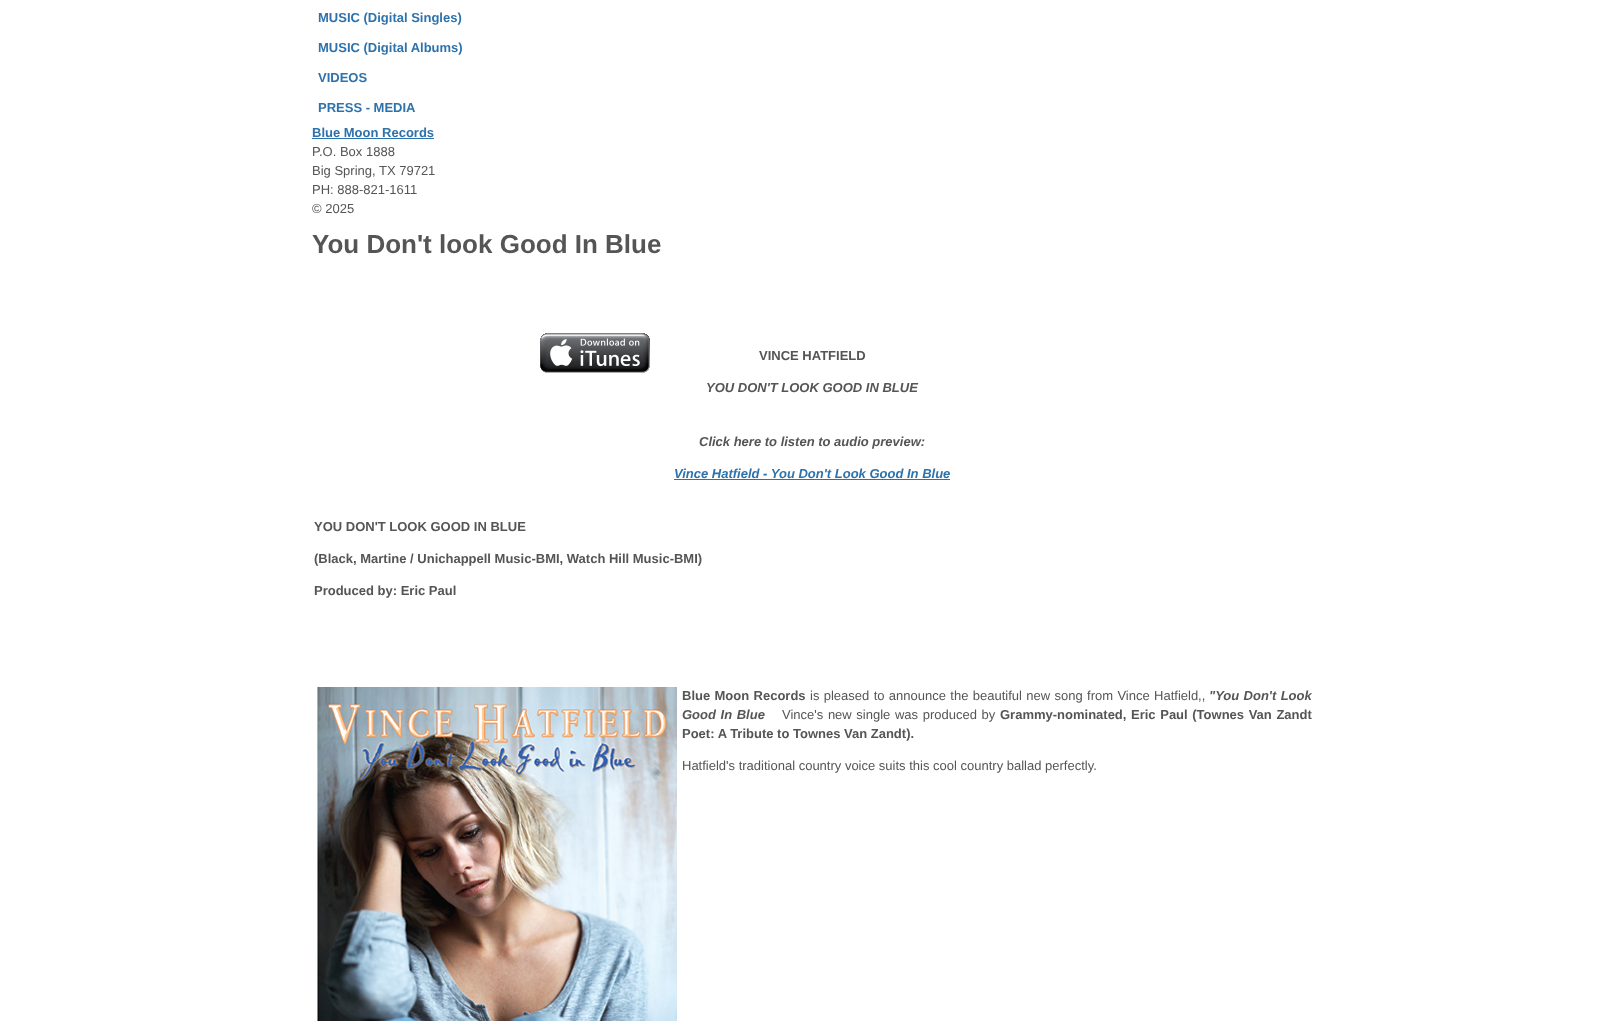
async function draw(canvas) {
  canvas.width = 1624;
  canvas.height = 1021;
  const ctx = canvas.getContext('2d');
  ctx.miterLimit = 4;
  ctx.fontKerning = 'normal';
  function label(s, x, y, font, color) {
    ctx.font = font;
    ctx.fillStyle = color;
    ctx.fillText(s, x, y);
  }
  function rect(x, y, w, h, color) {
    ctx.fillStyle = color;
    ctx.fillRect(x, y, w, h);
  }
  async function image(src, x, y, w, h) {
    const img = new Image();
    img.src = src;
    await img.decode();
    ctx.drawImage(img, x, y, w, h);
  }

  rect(0, 0, 1624, 1021, '#fff');
  label('MUSIC (Digital Singles)', 318, 22, 'bold 13px Liberation Sans', '#2d72ac');
  label('MUSIC (Digital Albums)', 318, 52, 'bold 13px Liberation Sans', '#2d72ac');
  label('VIDEOS', 318, 82, 'bold 13px Liberation Sans', '#2d72ac');
  label('PRESS - MEDIA', 318, 112, 'bold 13px Liberation Sans', '#2d72ac');
  label('Blue Moon Records', 312, 137, 'bold 13px Liberation Sans', '#2d72ac');
  rect(312, 138, 122, 1, '#2d72ac');
  label('P.O. Box 1888', 312, 156, '13px Liberation Sans', '#555');
  label('Big Spring, TX 79721', 312, 175, '13px Liberation Sans', '#555');
  label('PH: 888-821-1611', 312, 194, '13px Liberation Sans', '#555');
  label('© 2025', 312, 213, '13px Liberation Sans', '#555');
  label('You Don\'t look Good In Blue', 312, 253, 'bold 26px Liberation Sans', '#555');
  await image('assets/img1.png', 540, 333, 110, 40);
  label('VINCE HATFIELD', 759, 360, 'bold 13px Liberation Sans', '#555');
  label('YOU DON\'T LOOK GOOD IN BLUE', 706, 392, 'italic bold 13px Liberation Sans', '#555');
  label('Click here to listen to audio preview:', 699, 446, 'italic bold 13px Liberation Sans', '#555');
  label('Vince Hatfield - You Don\'t Look Good In Blue', 674, 478, 'italic bold 13px Liberation Sans', '#2d72ac');
  rect(674, 479, 276, 1, '#2d72ac');
  label('YOU DON\'T LOOK GOOD IN BLUE', 314, 531, 'bold 13px Liberation Sans', '#555');
  label('(Black, Martine / Unichappell Music-BMI, Watch Hill Music-BMI)', 314, 563, 'bold 13px Liberation Sans', '#555');
  label('Produced by: Eric Paul', 314, 595, 'bold 13px Liberation Sans', '#555');
  await image('assets/img2.png', 317, 687, 360, 334);
  ctx.wordSpacing = '0.75px';
  label('Blue Moon Records', 682, 700, 'bold 13px Liberation Sans', '#555');
  label('is pleased to announce the beautiful new song from Vince Hatfield,,', 810, 700, '13px Liberation Sans', '#555');
  label('"You Don\'t Look', 1209, 700, 'italic bold 13px Liberation Sans', '#555');
  ctx.wordSpacing = '1px';
  label('Good In Blue', 682, 719, 'italic bold 13px Liberation Sans', '#555');
  label('Vince\'s new single was produced by', 782, 719, '13px Liberation Sans', '#555');
  label('Grammy-nominated, Eric Paul (Townes Van Zandt', 1000, 719, 'bold 13px Liberation Sans', '#555');
  ctx.wordSpacing = '0px';
  label('Poet: A Tribute to Townes Van Zandt).', 682, 738, 'bold 13px Liberation Sans', '#555');
  label('Hatfield\'s traditional country voice suits this cool country ballad perfectly.', 682, 770, '13px Liberation Sans', '#555');
}

draw(document.querySelector('canvas'));
